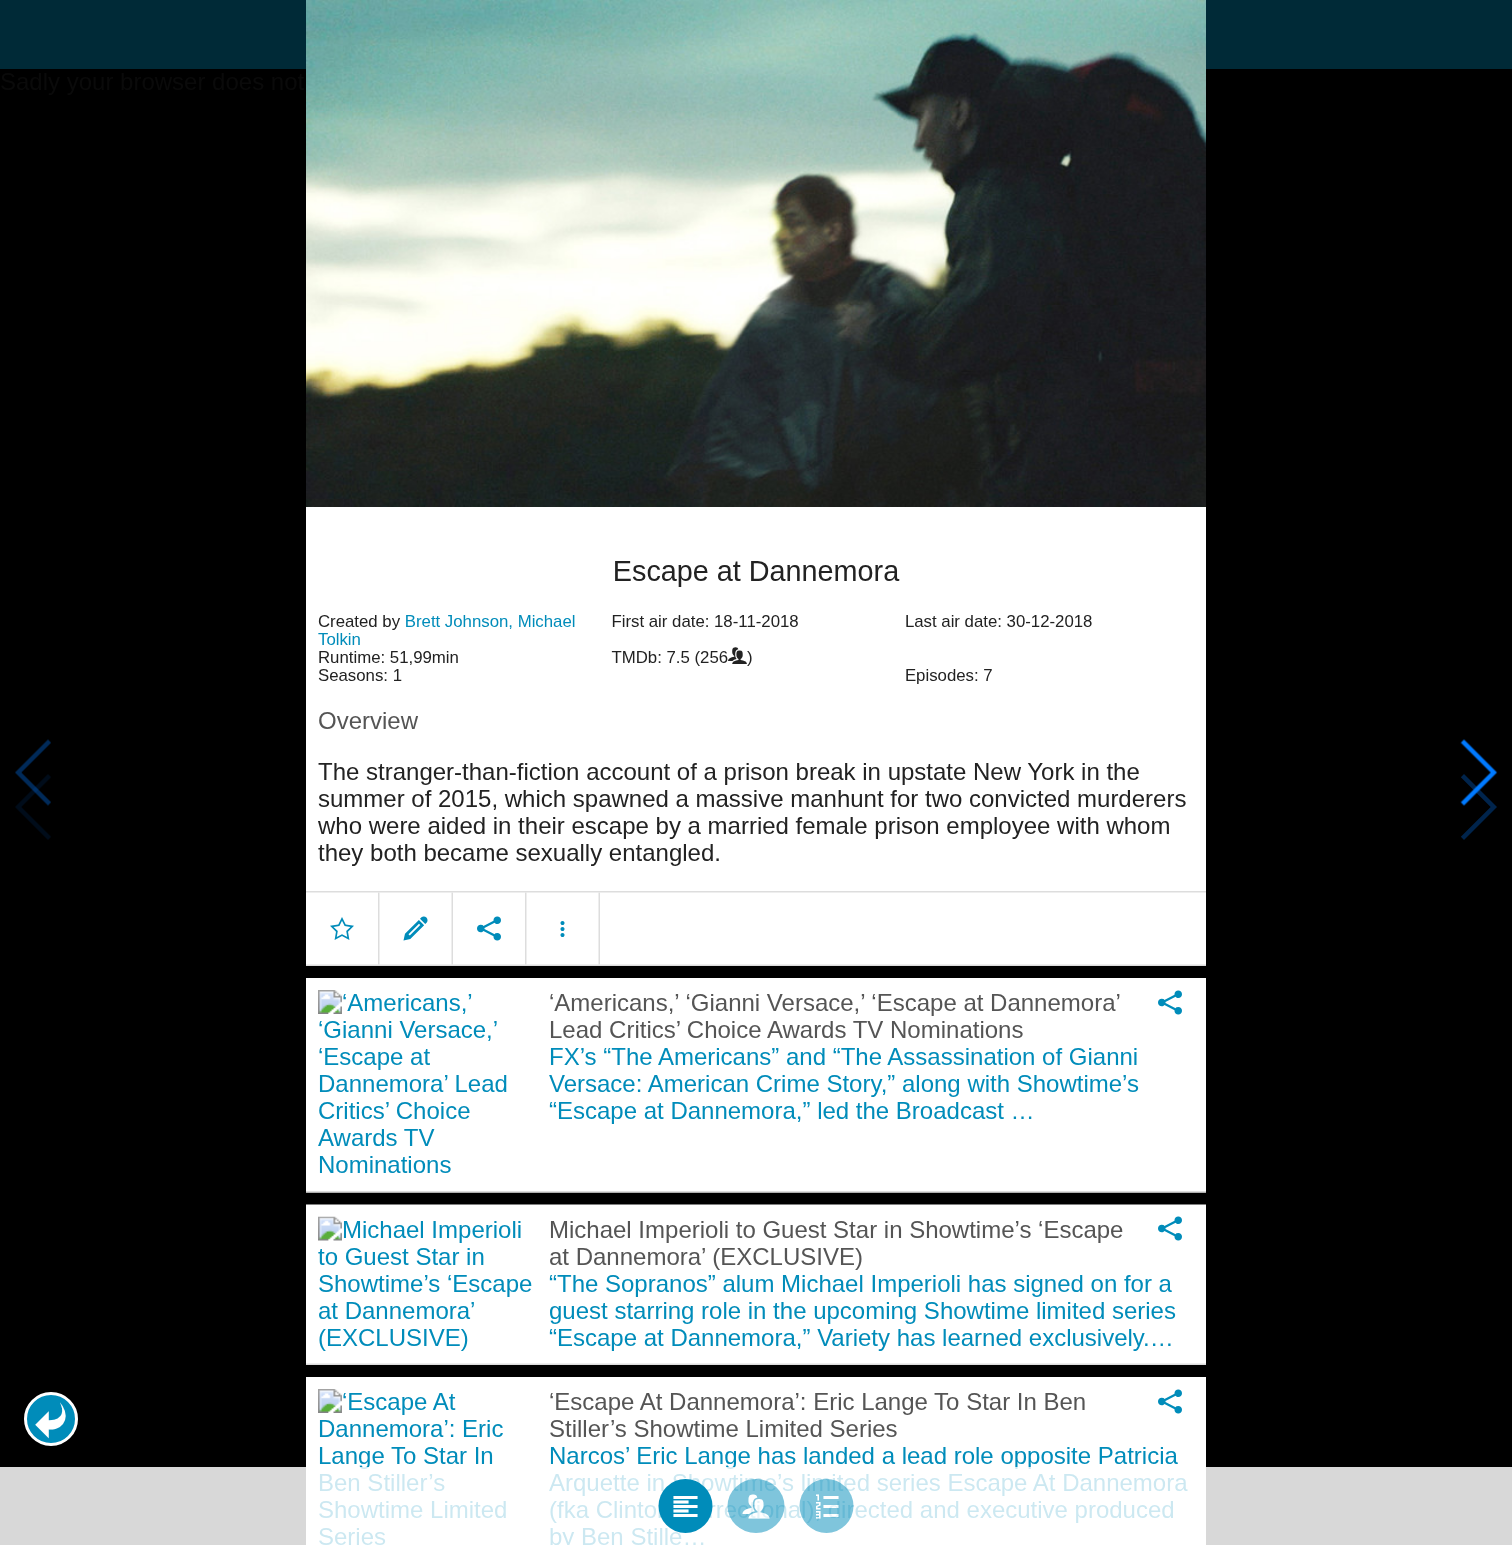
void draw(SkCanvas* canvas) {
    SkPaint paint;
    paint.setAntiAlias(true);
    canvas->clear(0xFFFFFFFF);
    canvas->drawImageRect(SkImages::DeferredFromEncodedData(SkData::MakeFromFileName("img1.png")), SkRect::MakeXYWH(0, 0, 1512, 1545), SkSamplingOptions());
}
